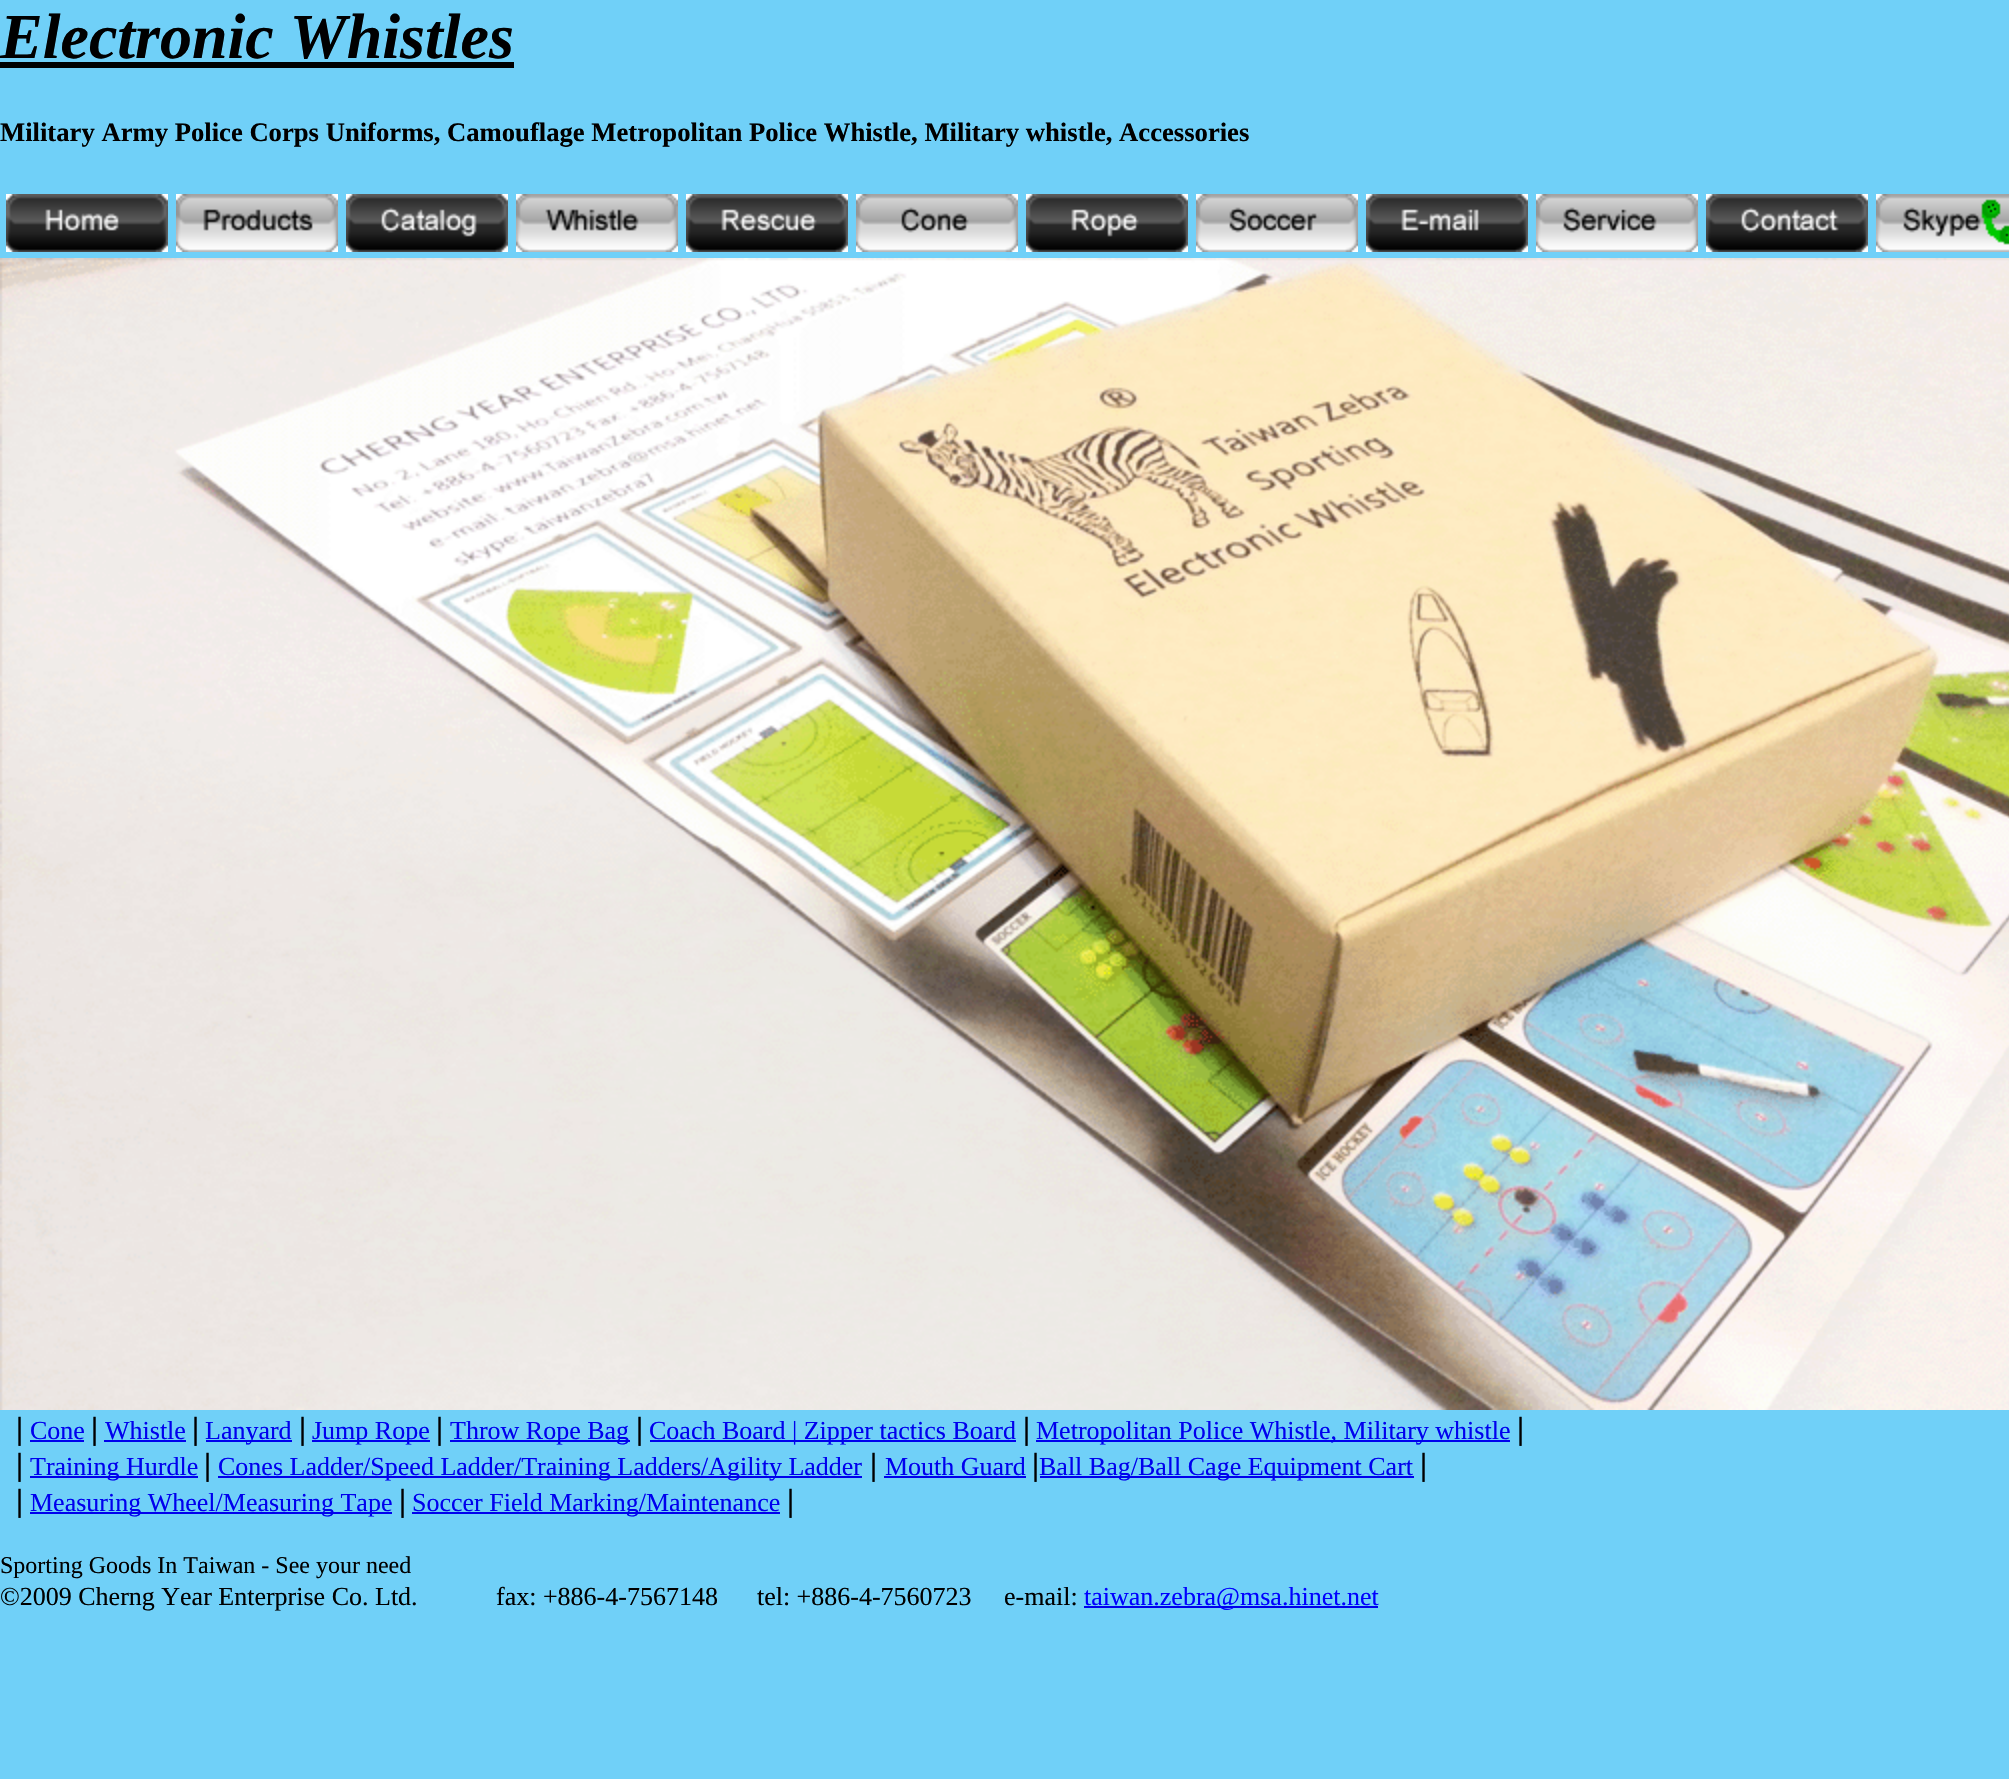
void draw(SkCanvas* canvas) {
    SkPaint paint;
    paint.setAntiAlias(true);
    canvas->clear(0xFF70D0F8);
    SkFont font1(fontMgr->matchFamilyStyle("Liberation Serif", SkFontStyle::BoldItalic()), 64);
    font1.setSubpixel(true);
    paint.setColor(0xFF000000);
    canvas->drawString("Electronic Whistles", 0, 58, font1, paint);
    canvas->drawRect(SkRect::MakeXYWH(0, 62, 514, 6), paint);
    SkFont font2(fontMgr->matchFamilyStyle("Liberation Serif", SkFontStyle::Bold()), 26.65f);
    font2.setSubpixel(true);
    canvas->drawString("Military Army Police Corps Uniforms, Camouflage Metropolitan Police Whistle, Military whistle, Accessories", 0, 141, font2, paint);
    canvas->drawImageRect(SkImages::DeferredFromEncodedData(SkData::MakeFromFileName("img1.png")), SkRect::MakeXYWH(6, 194, 162, 58), SkSamplingOptions());
    canvas->drawImageRect(SkImages::DeferredFromEncodedData(SkData::MakeFromFileName("img2.png")), SkRect::MakeXYWH(176, 194, 162, 58), SkSamplingOptions());
    canvas->drawImageRect(SkImages::DeferredFromEncodedData(SkData::MakeFromFileName("img3.png")), SkRect::MakeXYWH(346, 194, 162, 58), SkSamplingOptions());
    canvas->drawImageRect(SkImages::DeferredFromEncodedData(SkData::MakeFromFileName("img4.png")), SkRect::MakeXYWH(516, 194, 162, 58), SkSamplingOptions());
    canvas->drawImageRect(SkImages::DeferredFromEncodedData(SkData::MakeFromFileName("img5.png")), SkRect::MakeXYWH(686, 194, 162, 58), SkSamplingOptions());
    canvas->drawImageRect(SkImages::DeferredFromEncodedData(SkData::MakeFromFileName("img6.png")), SkRect::MakeXYWH(856, 194, 162, 58), SkSamplingOptions());
    canvas->drawImageRect(SkImages::DeferredFromEncodedData(SkData::MakeFromFileName("img7.png")), SkRect::MakeXYWH(1026, 194, 162, 58), SkSamplingOptions());
    canvas->drawImageRect(SkImages::DeferredFromEncodedData(SkData::MakeFromFileName("img8.png")), SkRect::MakeXYWH(1196, 194, 162, 58), SkSamplingOptions());
    canvas->drawImageRect(SkImages::DeferredFromEncodedData(SkData::MakeFromFileName("img9.png")), SkRect::MakeXYWH(1366, 194, 162, 58), SkSamplingOptions());
    canvas->drawImageRect(SkImages::DeferredFromEncodedData(SkData::MakeFromFileName("img10.png")), SkRect::MakeXYWH(1536, 194, 162, 58), SkSamplingOptions());
    canvas->drawImageRect(SkImages::DeferredFromEncodedData(SkData::MakeFromFileName("img11.png")), SkRect::MakeXYWH(1706, 194, 162, 58), SkSamplingOptions());
    canvas->drawImageRect(SkImages::DeferredFromEncodedData(SkData::MakeFromFileName("img12.png")), SkRect::MakeXYWH(1876, 194, 133, 58), SkSamplingOptions());
    canvas->drawImageRect(SkImages::DeferredFromEncodedData(SkData::MakeFromFileName("img13.png")), SkRect::MakeXYWH(0, 258, 2009, 1152), SkSamplingOptions());
    SkFont font3(fontMgr->matchFamilyStyle("Liberation Serif", SkFontStyle::Bold()), 32);
    font3.setSubpixel(true);
    canvas->drawString("|", 16, 1439, font3, paint);
    SkFont font4(fontMgr->matchFamilyStyle("Liberation Serif", SkFontStyle::Normal()), 26);
    font4.setSubpixel(true);
    paint.setColor(0xFF0000EE);
    canvas->drawString("Cone", 30, 1439, font4, paint);
    canvas->drawRect(SkRect::MakeXYWH(30, 1440, 54, 2), paint);
    paint.setColor(0xFF000000);
    canvas->drawString("|", 91, 1439, font3, paint);
    paint.setColor(0xFF0000EE);
    canvas->drawString("Whistle", 105, 1439, font4, paint);
    canvas->drawRect(SkRect::MakeXYWH(104, 1440, 82, 2), paint);
    paint.setColor(0xFF000000);
    canvas->drawString("|", 192, 1439, font3, paint);
    paint.setColor(0xFF0000EE);
    canvas->drawRect(SkRect::MakeXYWH(206, 1440, 86, 2), paint);
    canvas->drawString("Lanyard", 205, 1439, font4, paint);
    paint.setColor(0xFF000000);
    canvas->drawString("|", 299, 1439, font3, paint);
    paint.setColor(0xFF0000EE);
    canvas->drawRect(SkRect::MakeXYWH(312, 1440, 118, 2), paint);
    canvas->drawString("Jump Rope", 312, 1439, font4, paint);
    paint.setColor(0xFF000000);
    canvas->drawString("|", 436, 1439, font3, paint);
    paint.setColor(0xFF0000EE);
    canvas->drawRect(SkRect::MakeXYWH(450, 1440, 180, 2), paint);
    canvas->drawString("Throw Rope Bag", 450, 1439, font4, paint);
    paint.setColor(0xFF000000);
    canvas->drawString("|", 636, 1439, font3, paint);
    paint.setColor(0xFF0000EE);
    canvas->drawRect(SkRect::MakeXYWH(650, 1440, 366, 2), paint);
    canvas->drawString("Coach Board | Zipper tactics Board", 649, 1439, font4, paint);
    paint.setColor(0xFF000000);
    canvas->drawString("|", 1023, 1439, font3, paint);
    paint.setColor(0xFF0000EE);
    canvas->drawRect(SkRect::MakeXYWH(1036, 1440, 474, 2), paint);
    canvas->drawString("Metropolitan Police Whistle, Military whistle", 1036, 1439, font4, paint);
    paint.setColor(0xFF000000);
    canvas->drawString("|", 1517, 1439, font3, paint);
    canvas->drawString("|", 16, 1475, font3, paint);
    paint.setColor(0xFF0000EE);
    canvas->drawRect(SkRect::MakeXYWH(30, 1476, 168, 2), paint);
    canvas->drawString("Training Hurdle", 30, 1475, font4, paint);
    paint.setColor(0xFF000000);
    canvas->drawString("|", 204, 1475, font3, paint);
    paint.setColor(0xFF0000EE);
    canvas->drawRect(SkRect::MakeXYWH(218, 1476, 644, 2), paint);
    canvas->drawString("Cones Ladder/Speed Ladder/Training Ladders/Agility Ladder", 218, 1475, font4, paint);
    paint.setColor(0xFF000000);
    canvas->drawString("|", 870, 1475, font3, paint);
    paint.setColor(0xFF0000EE);
    canvas->drawString("Mouth Guard", 885, 1475, font4, paint);
    canvas->drawRect(SkRect::MakeXYWH(884, 1476, 142, 2), paint);
    paint.setColor(0xFF000000);
    canvas->drawString("|", 1032, 1475, font3, paint);
    paint.setColor(0xFF0000EE);
    canvas->drawRect(SkRect::MakeXYWH(1040, 1476, 374, 2), paint);
    canvas->drawString("Ball Bag/Ball Cage Equipment Cart", 1039, 1475, font4, paint);
    paint.setColor(0xFF000000);
    canvas->drawString("|", 1420, 1475, font3, paint);
    canvas->drawString("|", 16, 1511, font3, paint);
    paint.setColor(0xFF0000EE);
    canvas->drawRect(SkRect::MakeXYWH(30, 1512, 362, 2), paint);
    canvas->drawString("Measuring Wheel/Measuring Tape", 30, 1511, font4, paint);
    paint.setColor(0xFF000000);
    canvas->drawString("|", 399, 1511, font3, paint);
    paint.setColor(0xFF0000EE);
    canvas->drawRect(SkRect::MakeXYWH(412, 1512, 368, 2), paint);
    canvas->drawString("Soccer Field Marking/Maintenance", 412, 1511, font4, paint);
    paint.setColor(0xFF000000);
    canvas->drawString("|", 787, 1511, font3, paint);
    SkFont font5(fontMgr->matchFamilyStyle("Liberation Serif", SkFontStyle::Normal()), 24);
    font5.setSubpixel(true);
    canvas->drawString("Sporting Goods In Taiwan - See your need", 0, 1573, font5, paint);
    canvas->drawString("©2009 Cherng Year Enterprise Co. Ltd.", 0, 1605, font4, paint);
    canvas->drawString("fax: +886-4-7567148      tel: +886-4-7560723", 496, 1605, font4, paint);
    canvas->drawString("e-mail:", 1004, 1605, font4, paint);
    paint.setColor(0xFF0000EE);
    canvas->drawRect(SkRect::MakeXYWH(1084, 1606, 294, 2), paint);
    paint.setColor(0xFF0000FF);
    canvas->drawString("taiwan.zebra@msa.hinet.net", 1084, 1605, font4, paint);
}
